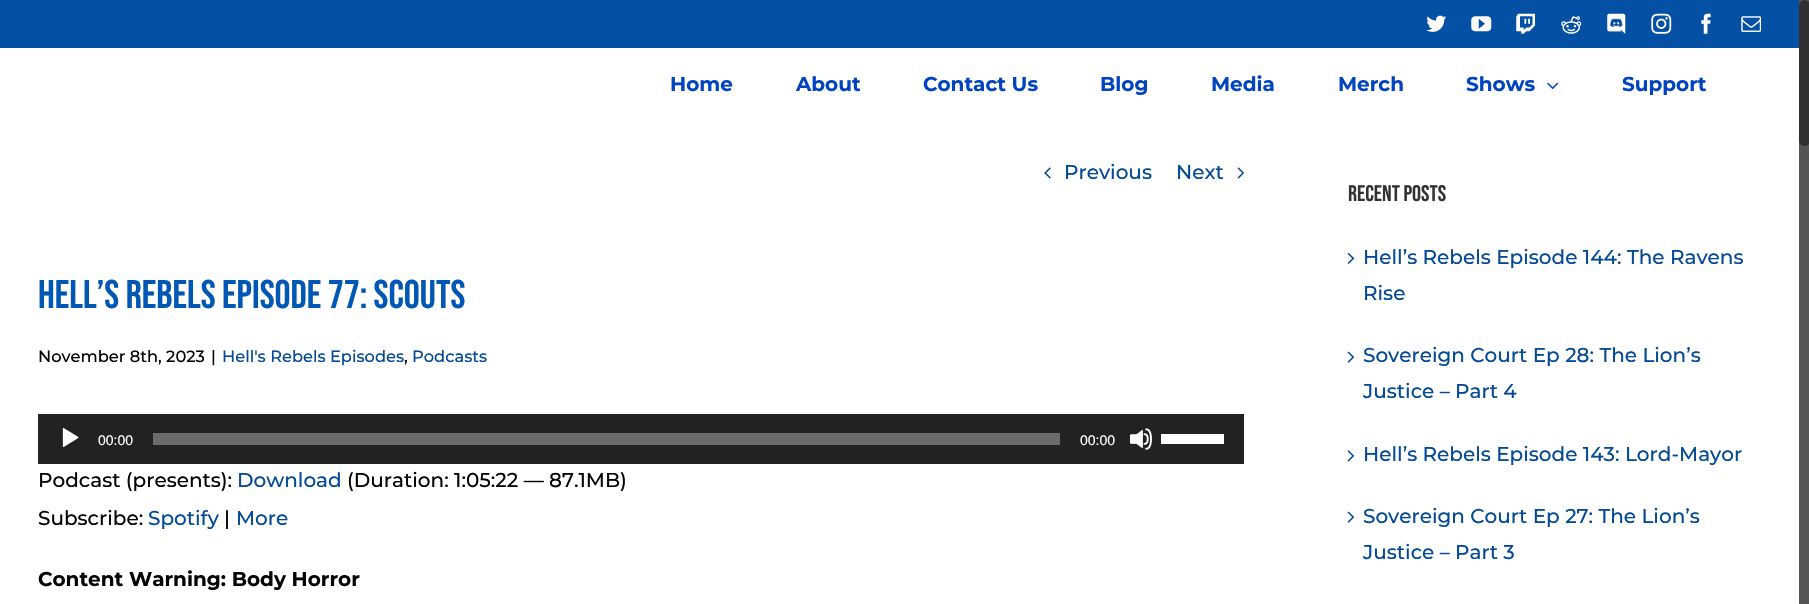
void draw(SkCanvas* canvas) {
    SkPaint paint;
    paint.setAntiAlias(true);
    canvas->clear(0xFFFFFFFF);
    paint.setColor(0xFF0450A5);
    canvas->drawRect(SkRect::MakeXYWH(0, 0, 1799, 48), paint);
    canvas->drawImageRect(SkImages::DeferredFromEncodedData(SkData::MakeFromFileName("img1.png")), SkRect::MakeXYWH(1426, 15, 21, 17), SkSamplingOptions());
    canvas->drawImageRect(SkImages::DeferredFromEncodedData(SkData::MakeFromFileName("img2.png")), SkRect::MakeXYWH(1471, 16, 21, 16), SkSamplingOptions());
    canvas->drawImageRect(SkImages::DeferredFromEncodedData(SkData::MakeFromFileName("img3.png")), SkRect::MakeXYWH(1516, 13, 19, 21), SkSamplingOptions());
    canvas->drawImageRect(SkImages::DeferredFromEncodedData(SkData::MakeFromFileName("img4.png")), SkRect::MakeXYWH(1561, 16, 21, 18), SkSamplingOptions());
    canvas->drawImageRect(SkImages::DeferredFromEncodedData(SkData::MakeFromFileName("img5.png")), SkRect::MakeXYWH(1607, 13, 19, 21), SkSamplingOptions());
    canvas->drawImageRect(SkImages::DeferredFromEncodedData(SkData::MakeFromFileName("img6.png")), SkRect::MakeXYWH(1651, 13, 21, 21), SkSamplingOptions());
    canvas->drawImageRect(SkImages::DeferredFromEncodedData(SkData::MakeFromFileName("img7.png")), SkRect::MakeXYWH(1701, 13, 10, 21), SkSamplingOptions());
    canvas->drawImageRect(SkImages::DeferredFromEncodedData(SkData::MakeFromFileName("img8.png")), SkRect::MakeXYWH(1741, 16, 20, 16), SkSamplingOptions());
    SkFont font1(fontMgr->matchFamilyStyle("Montserrat", SkFontStyle::Bold()), 20);
    font1.setSubpixel(true);
    paint.setColor(0xFF0144BF);
    canvas->drawString("Home", 670, 91, font1, paint);
    canvas->drawString("About", 796, 91, font1, paint);
    canvas->drawString("Contact Us", 923, 91, font1, paint);
    canvas->drawString("Blog", 1100, 91, font1, paint);
    canvas->drawString("Media", 1211, 91, font1, paint);
    canvas->drawString("Merch", 1338, 91, font1, paint);
    canvas->drawString("Shows", 1466, 91, font1, paint);
    canvas->drawImageRect(SkImages::DeferredFromEncodedData(SkData::MakeFromFileName("img9.png")), SkRect::MakeXYWH(1547, 82, 12, 8), SkSamplingOptions());
    canvas->drawString("Support", 1622, 91, font1, paint);
    canvas->drawImageRect(SkImages::DeferredFromEncodedData(SkData::MakeFromFileName("img10.png")), SkRect::MakeXYWH(1044, 167, 7, 12), SkSamplingOptions());
    SkFont font2(fontMgr->matchFamilyStyle("Montserrat", SkFontStyle(500, SkFontStyle::kNormal_Width, SkFontStyle::kUpright_Slant)), 20);
    font2.setSubpixel(true);
    paint.setColor(0xFF044A95);
    canvas->drawString("Previous", 1064, 179, font2, paint);
    canvas->drawString("Next", 1176, 179, font2, paint);
    canvas->drawImageRect(SkImages::DeferredFromEncodedData(SkData::MakeFromFileName("img11.png")), SkRect::MakeXYWH(1237, 167, 8, 12), SkSamplingOptions());
    SkFont font3(fontMgr->matchFamilyStyle("Bebas Neue", SkFontStyle::Normal()), 40);
    font3.setSubpixel(true);
    paint.setColor(0xFF0158B4);
    canvas->drawString("Hell’s Rebels Episode 77: Scouts", 38, 308, font3, paint);
    SkFont font4(fontMgr->matchFamilyStyle("Montserrat", SkFontStyle(500, SkFontStyle::kNormal_Width, SkFontStyle::kUpright_Slant)), 16.25f);
    font4.setSubpixel(true);
    paint.setColor(0xFF050505);
    canvas->drawString("November 8th, 2023", 38, 362, font4, paint);
    canvas->drawString("|", 211, 362, font4, paint);
    paint.setColor(0xFF044A95);
    canvas->drawString("Hell's Rebels Episodes", 222, 362, font4, paint);
    paint.setColor(0xFF050505);
    canvas->drawString(",", 404, 362, font4, paint);
    paint.setColor(0xFF044A95);
    canvas->drawString("Podcasts", 412, 362, font4, paint);
    paint.setColor(0xFF222222);
    canvas->drawRect(SkRect::MakeXYWH(38, 414, 1206, 50), paint);
    canvas->drawImageRect(SkImages::DeferredFromEncodedData(SkData::MakeFromFileName("img12.png")), SkRect::MakeXYWH(62, 428, 17, 19), SkSamplingOptions());
    SkFont font5(fontMgr->matchFamilyStyle("Liberation Sans", SkFontStyle::Normal()), 14);
    font5.setSubpixel(true);
    paint.setColor(0xFFFFFFFF);
    canvas->drawString("00:00", 98, 445, font5, paint);
    paint.setColor(0xFF6B6B6B);
    canvas->drawRect(SkRect::MakeXYWH(153, 433, 907, 12), paint);
    paint.setColor(0xFFFFFFFF);
    canvas->drawString("00:00", 1080, 445, font5, paint);
    canvas->drawImageRect(SkImages::DeferredFromEncodedData(SkData::MakeFromFileName("img13.png")), SkRect::MakeXYWH(1130, 428, 22, 22), SkSamplingOptions());
    canvas->drawRect(SkRect::MakeXYWH(1161, 434, 63, 10), paint);
    paint.setColor(0xFF050505);
    canvas->drawString("Podcast (presents):", 38, 487, font2, paint);
    paint.setColor(0xFF044A95);
    canvas->drawString("Download", 237, 487, font2, paint);
    paint.setColor(0xFF050505);
    canvas->drawString("(Duration: 1:05:22 — 87.1MB)", 347, 487, font2, paint);
    canvas->drawString("Subscribe:", 38, 525, font2, paint);
    paint.setColor(0xFF044A95);
    canvas->drawString("Spotify", 148, 525, font2, paint);
    paint.setColor(0xFF050505);
    canvas->drawString("|", 224, 525, font2, paint);
    paint.setColor(0xFF044A95);
    canvas->drawString("More", 236, 525, font2, paint);
    paint.setColor(0xFF050505);
    canvas->drawString("Content Warning: Body Horror", 38, 586, font1, paint);
    SkFont font6(fontMgr->matchFamilyStyle("Bebas Neue", SkFontStyle::Normal()), 22.5f);
    font6.setSubpixel(true);
    paint.setColor(0xFF333333);
    canvas->drawString("Recent Posts", 1348, 201, font6, paint);
    canvas->drawImageRect(SkImages::DeferredFromEncodedData(SkData::MakeFromFileName("img14.png")), SkRect::MakeXYWH(1347, 252, 8, 12), SkSamplingOptions());
    paint.setColor(0xFF044A95);
    canvas->drawString("Hell’s Rebels Episode 144: The Ravens", 1363, 264, font2, paint);
    canvas->drawString("Rise", 1363, 300, font2, paint);
    canvas->drawImageRect(SkImages::DeferredFromEncodedData(SkData::MakeFromFileName("img15.png")), SkRect::MakeXYWH(1347, 351, 8, 12), SkSamplingOptions());
    canvas->drawString("Sovereign Court Ep 28: The Lion’s", 1363, 362, font2, paint);
    canvas->drawString("Justice – Part 4", 1363, 398, font2, paint);
    canvas->drawImageRect(SkImages::DeferredFromEncodedData(SkData::MakeFromFileName("img16.png")), SkRect::MakeXYWH(1347, 450, 8, 12), SkSamplingOptions());
    canvas->drawString("Hell’s Rebels Episode 143: Lord-Mayor", 1363, 461, font2, paint);
    canvas->drawImageRect(SkImages::DeferredFromEncodedData(SkData::MakeFromFileName("img15.png")), SkRect::MakeXYWH(1347, 511, 8, 12), SkSamplingOptions());
    canvas->drawString("Sovereign Court Ep 27: The Lion’s", 1363, 523, font2, paint);
    canvas->drawString("Justice – Part 3", 1363, 559, font2, paint);
    paint.setColor(0xFF555555);
    canvas->drawRect(SkRect::MakeXYWH(1799, 0, 10, 604), paint);
    paint.setColor(0xFF303030);
    canvas->drawRoundRect(SkRect::MakeXYWH(1799, 0, 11, 146), 5.5f, 5.5f, paint);
}
